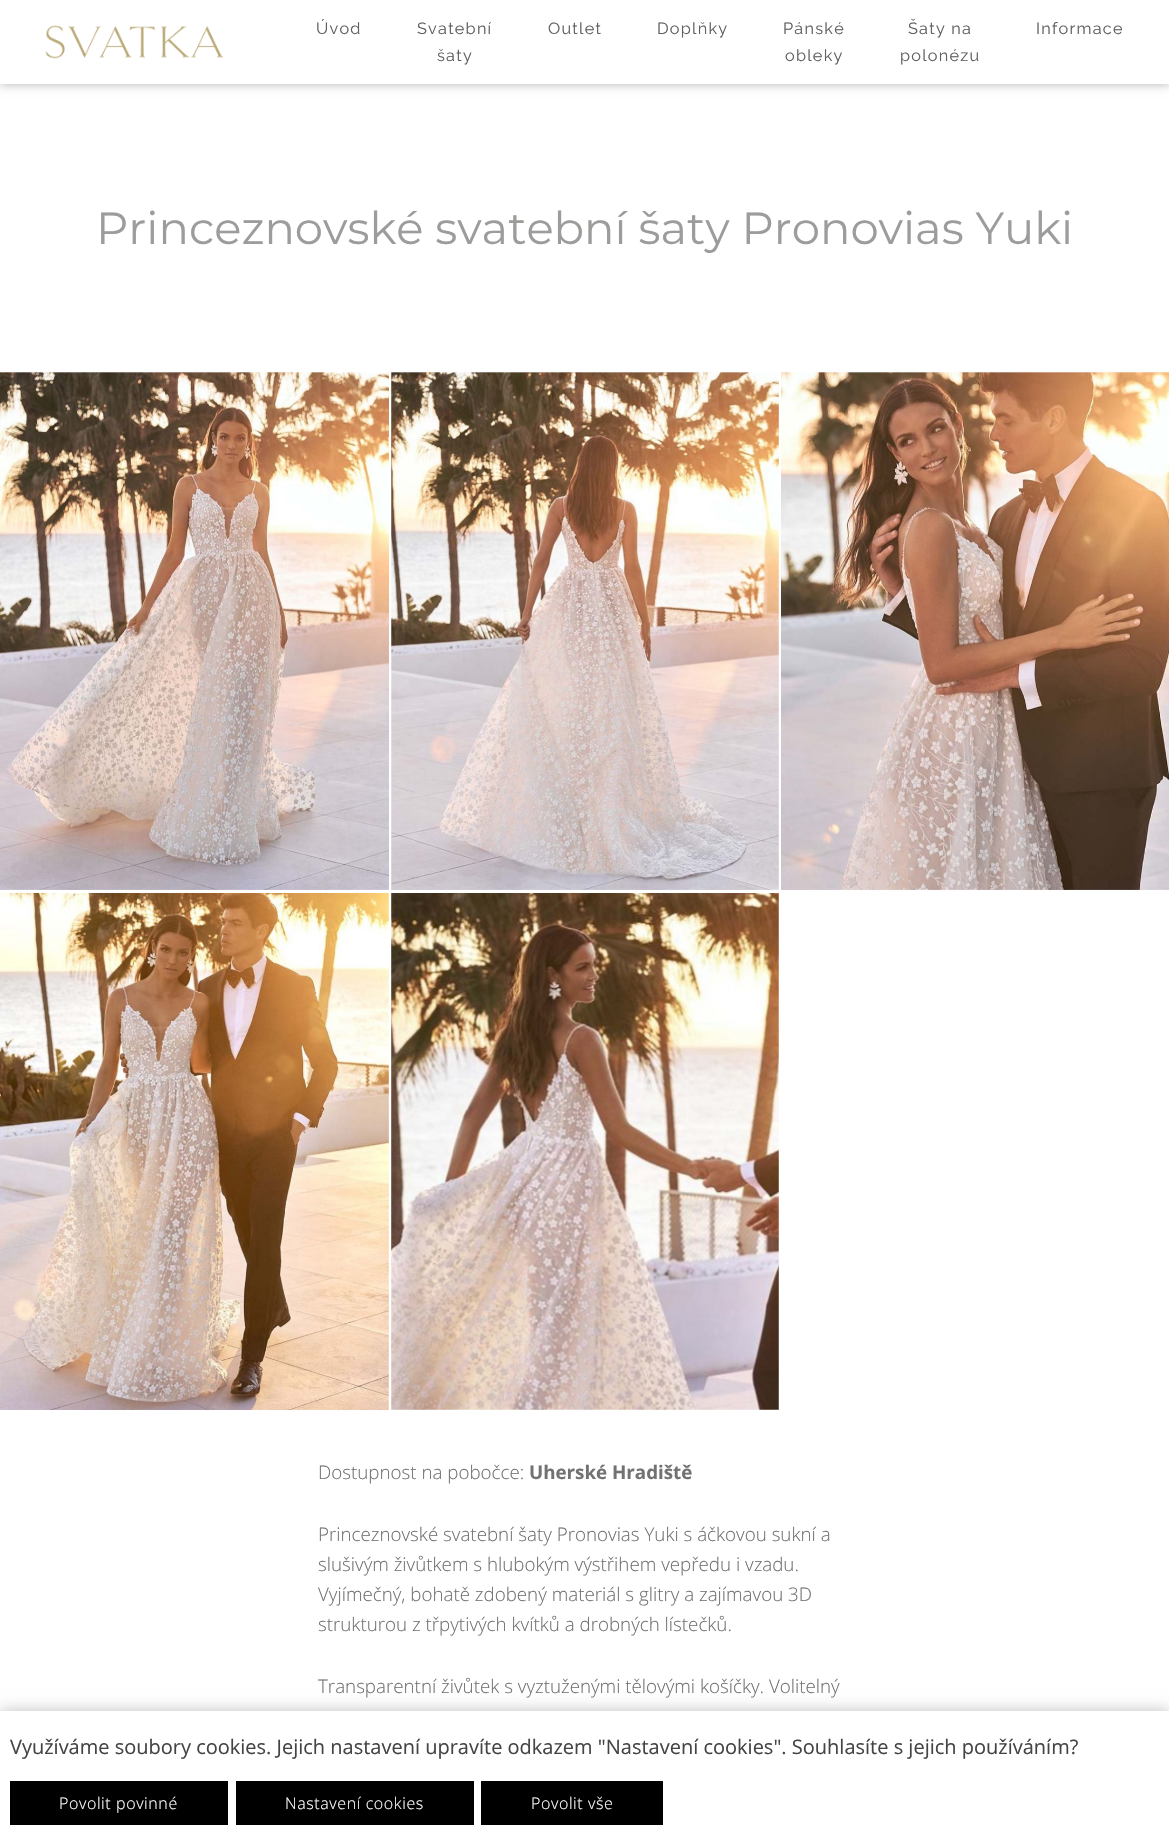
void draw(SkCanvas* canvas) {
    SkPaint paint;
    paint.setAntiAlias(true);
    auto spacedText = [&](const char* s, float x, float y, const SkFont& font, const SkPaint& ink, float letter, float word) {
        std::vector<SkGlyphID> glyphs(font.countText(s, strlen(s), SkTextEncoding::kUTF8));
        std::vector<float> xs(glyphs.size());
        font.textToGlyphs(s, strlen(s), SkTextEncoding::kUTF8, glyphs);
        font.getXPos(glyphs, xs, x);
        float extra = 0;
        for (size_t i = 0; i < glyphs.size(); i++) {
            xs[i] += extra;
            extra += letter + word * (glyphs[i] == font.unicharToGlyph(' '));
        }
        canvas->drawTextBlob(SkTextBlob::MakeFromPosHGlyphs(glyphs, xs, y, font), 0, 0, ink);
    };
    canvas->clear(0xFFFFFFFF);
    paint.setColor(0x4D000000);
    paint.setMaskFilter(SkMaskFilter::MakeBlur(kNormal_SkBlurStyle, 5));
    canvas->drawRect(SkRect::MakeXYWH(0, 0, 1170, 84), paint);
    paint.setMaskFilter(nullptr);
    paint.setColor(0xFFFFFFFF);
    canvas->drawRect(SkRect::MakeXYWH(0, 0, 1169, 84), paint);
    canvas->drawImageRect(SkImages::DeferredFromEncodedData(SkData::MakeFromFileName("img1.png")), SkRect::MakeXYWH(45, 25, 179, 34), SkSamplingOptions());
    SkFont font1(fontMgr->matchFamilyStyle("Raleway", SkFontStyle::Normal()), 16.25f);
    font1.setSubpixel(true);
    paint.setColor(0xFF605F5F);
    spacedText("Úvod", 316, 34, font1, paint, 1.25f, 0);
    spacedText("Svatební", 417, 34, font1, paint, 1.25f, 0);
    spacedText("šaty", 437, 61, font1, paint, 1.25f, 0);
    spacedText("Outlet", 548, 34, font1, paint, 1.25f, 0);
    spacedText("Doplňky", 657, 34, font1, paint, 1.25f, 0);
    spacedText("Pánské", 783, 34, font1, paint, 1.25f, 0);
    spacedText("obleky", 785, 61, font1, paint, 1.25f, 0);
    spacedText("Šaty na", 908, 34, font1, paint, 1.25f, 0);
    spacedText("polonézu", 900, 61, font1, paint, 1.25f, 0);
    spacedText("Informace", 1036, 34, font1, paint, 1.25f, 0);
    SkFont font2(fontMgr->matchFamilyStyle("Montserrat", SkFontStyle::Normal()), 45);
    font2.setSubpixel(true);
    paint.setColor(0xFF9D9C9B);
    canvas->drawString("Princeznovské svatební šaty Pronovias Yuki", 96, 244, font2, paint);
    canvas->drawImageRect(SkImages::DeferredFromEncodedData(SkData::MakeFromFileName("img2.png")), SkRect::MakeXYWH(0, 372, 389, 518), SkSamplingOptions());
    canvas->drawImageRect(SkImages::DeferredFromEncodedData(SkData::MakeFromFileName("img3.png")), SkRect::MakeXYWH(391, 372, 388, 518), SkSamplingOptions());
    canvas->drawImageRect(SkImages::DeferredFromEncodedData(SkData::MakeFromFileName("img4.png")), SkRect::MakeXYWH(781, 372, 388, 518), SkSamplingOptions());
    canvas->drawImageRect(SkImages::DeferredFromEncodedData(SkData::MakeFromFileName("img5.png")), SkRect::MakeXYWH(0, 893, 389, 517), SkSamplingOptions());
    canvas->drawImageRect(SkImages::DeferredFromEncodedData(SkData::MakeFromFileName("img6.png")), SkRect::MakeXYWH(391, 893, 388, 517), SkSamplingOptions());
    SkFont font3(fontMgr->matchFamilyStyle("Open Sans", SkFontStyle(300, SkFontStyle::kNormal_Width, SkFontStyle::kUpright_Slant)), 18.75f);
    font3.setSubpixel(true);
    paint.setColor(0xFF727272);
    canvas->drawString("Dostupnost na pobočce:", 318, 1479, font3, paint);
    SkFont font4(fontMgr->matchFamilyStyle("Open Sans", SkFontStyle::Bold()), 18.75f);
    font4.setSubpixel(true);
    canvas->drawString("Uherské Hradiště", 529, 1479, font4, paint);
    canvas->drawString("Princeznovské svatební šaty Pronovias Yuki s áčkovou sukní a", 318, 1541, font3, paint);
    canvas->drawString("slušivým živůtkem s hlubokým výstřihem vepředu i vzadu.", 318, 1571, font3, paint);
    canvas->drawString("Vyjímečný, bohatě zdobený materiál s glitry a zajímavou 3D", 318, 1601, font3, paint);
    canvas->drawString("strukturou z třpytivých kvítků a drobných lístečků.", 318, 1631, font3, paint);
    canvas->drawString("Transparentní živůtek s vyztuženými tělovými košíčky. Volitelný", 318, 1693, font3, paint);
    paint.setColor(0x40000000);
    paint.setMaskFilter(SkMaskFilter::MakeBlur(kNormal_SkBlurStyle, 7.5f));
    canvas->drawRect(SkRect::MakeXYWH(0, 1711, 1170, 134), paint);
    paint.setMaskFilter(nullptr);
    paint.setColor(0xFFFFFFFF);
    canvas->drawRect(SkRect::MakeXYWH(0, 1711, 1169, 134), paint);
    SkFont font5(fontMgr->matchFamilyStyle("Open Sans", SkFontStyle::Normal()), 20);
    font5.setSubpixel(true);
    paint.setColor(0xFF444444);
    canvas->drawString("Využíváme soubory cookies. Jejich nastavení upravíte odkazem \"Nastavení cookies\". Souhlasíte s jejich používáním?", 10, 1754, font5, paint);
    paint.setColor(0xFF000000);
    canvas->drawRect(SkRect::MakeXYWH(10, 1781, 218, 44), paint);
    SkFont font6(fontMgr->matchFamilyStyle("Open Sans", SkFontStyle(300, SkFontStyle::kNormal_Width, SkFontStyle::kUpright_Slant)), 16);
    font6.setSubpixel(true);
    paint.setColor(0xFFFFFFFF);
    spacedText("Povolit povinné", 59, 1809, font6, paint, 0.6f, 0);
    paint.setColor(0xFF000000);
    canvas->drawRect(SkRect::MakeXYWH(236, 1781, 238, 44), paint);
    paint.setColor(0xFFFFFFFF);
    spacedText("Nastavení cookies", 285, 1809, font6, paint, 0.6f, 0);
    paint.setColor(0xFF000000);
    canvas->drawRect(SkRect::MakeXYWH(481, 1781, 182, 44), paint);
    paint.setColor(0xFFFFFFFF);
    spacedText("Povolit vše", 531, 1809, font6, paint, 0.6f, 0);
}
